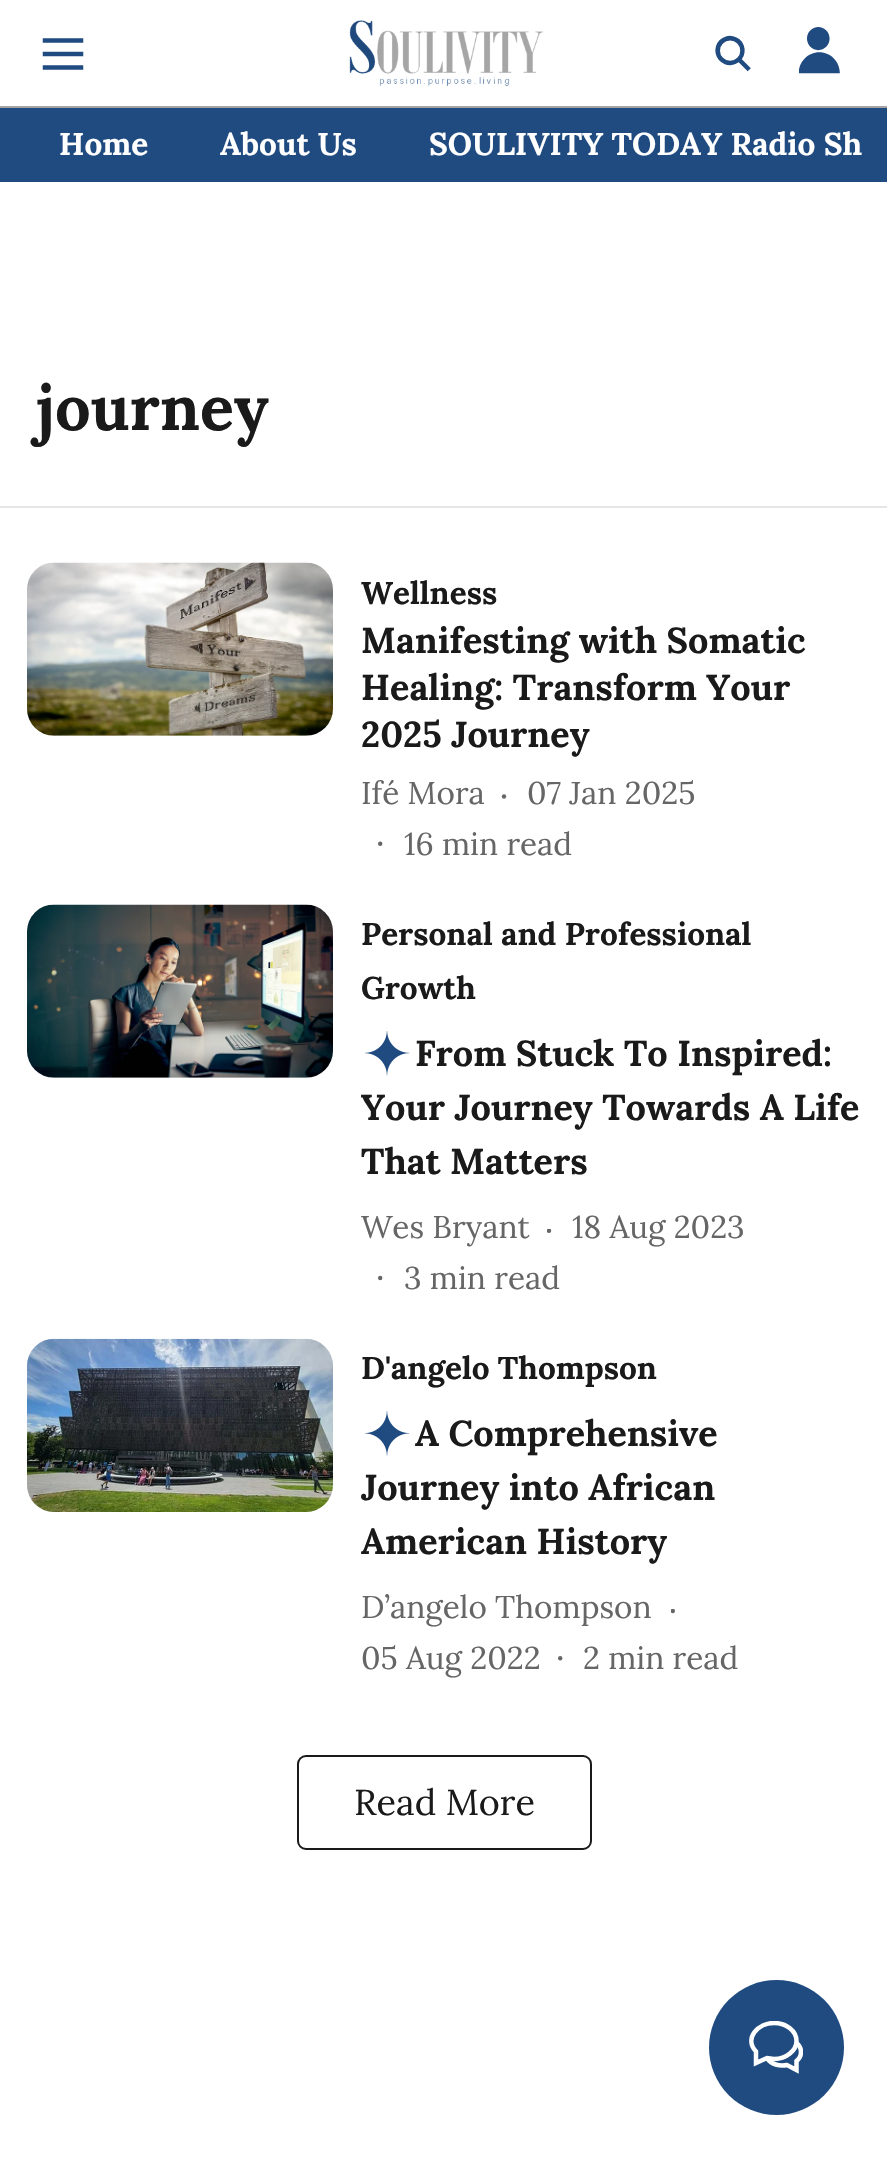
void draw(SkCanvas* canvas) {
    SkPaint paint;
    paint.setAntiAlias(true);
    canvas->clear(0xFFFFFFFF);
    paint.setColor(0xFFA4A4A4);
    canvas->drawRect(SkRect::MakeXYWH(0, 106, 887, 2), paint);
    canvas->drawImageRect(SkImages::DeferredFromEncodedData(SkData::MakeFromFileName("img1.png")), SkRect::MakeXYWH(42, 38, 42, 32), SkSamplingOptions());
    canvas->drawImageRect(SkImages::DeferredFromEncodedData(SkData::MakeFromFileName("img2.png")), SkRect::MakeXYWH(349, 20, 195, 66), SkSamplingOptions());
    canvas->drawImageRect(SkImages::DeferredFromEncodedData(SkData::MakeFromFileName("img3.png")), SkRect::MakeXYWH(715, 35, 36, 37), SkSamplingOptions());
    canvas->drawImageRect(SkImages::DeferredFromEncodedData(SkData::MakeFromFileName("img4.png")), SkRect::MakeXYWH(799, 27, 41, 47), SkSamplingOptions());
    paint.setColor(0xFF204B81);
    canvas->drawRect(SkRect::MakeXYWH(0, 108, 887, 74), paint);
    SkFont font1(fontMgr->matchFamilyStyle("Lora", SkFontStyle::Bold()), 31.5f);
    font1.setSubpixel(true);
    paint.setColor(0xFFFFFFFF);
    canvas->drawString("Home", 59, 155, font1, paint);
    canvas->drawString("About Us", 220, 155, font1, paint);
    canvas->drawString("SOULIVITY TODAY Radio Sh", 429, 155, font1, paint);
    paint.setColor(0xFFE6E6E6);
    canvas->drawRect(SkRect::MakeXYWH(0, 506, 887, 2), paint);
    SkFont font2(fontMgr->matchFamilyStyle("Lora", SkFontStyle::Bold()), 63);
    font2.setSubpixel(true);
    paint.setColor(0xFF1A1A1A);
    canvas->drawString("journey", 36, 430, font2, paint);
    paint.setColor(0xFFF0F0F0);
    canvas->drawRoundRect(SkRect::MakeXYWH(27, 563, 306, 173), 27, 27, paint);
    canvas->drawImageRect(SkImages::DeferredFromEncodedData(SkData::MakeFromFileName("img5.png")), SkRect::MakeXYWH(27, 562, 306, 174), SkSamplingOptions());
    paint.setColor(0xFF1A1A1A);
    canvas->drawString("Wellness", 361, 604, font1, paint);
    SkFont font3(fontMgr->matchFamilyStyle("Lora", SkFontStyle::Bold()), 36);
    font3.setSubpixel(true);
    canvas->drawString("Manifesting with Somatic", 361, 653, font3, paint);
    canvas->drawString("Healing: Transform Your", 361, 700, font3, paint);
    canvas->drawString("2025 Journey", 361, 747, font3, paint);
    SkFont font4(fontMgr->matchFamilyStyle("Lora", SkFontStyle::Normal()), 31.5f);
    font4.setSubpixel(true);
    paint.setColor(0xFF666666);
    canvas->drawString("Ifé Mora", 361, 804, font4, paint);
    canvas->drawCircle(504, 796.5f, 2.2f, paint);
    canvas->drawString("07 Jan 2025", 527, 804, font4, paint);
    canvas->drawCircle(380.2f, 843.8f, 2.2f, paint);
    canvas->drawString("16 min read", 404, 855, font4, paint);
    paint.setColor(0xFFF0F0F0);
    canvas->drawRoundRect(SkRect::MakeXYWH(27, 905, 306, 173), 27, 27, paint);
    canvas->drawImageRect(SkImages::DeferredFromEncodedData(SkData::MakeFromFileName("img6.png")), SkRect::MakeXYWH(27, 904, 306, 174), SkSamplingOptions());
    paint.setColor(0xFF1A1A1A);
    canvas->drawString("Personal and Professional", 361, 945, font1, paint);
    canvas->drawString("Growth", 361, 999, font1, paint);
    canvas->drawImageRect(SkImages::DeferredFromEncodedData(SkData::MakeFromFileName("img7.png")), SkRect::MakeXYWH(365, 1031, 45, 45), SkSamplingOptions());
    canvas->drawString("From Stuck To Inspired:", 415, 1066, font3, paint);
    canvas->drawString("Your Journey Towards A Life", 361, 1120, font3, paint);
    canvas->drawString("That Matters", 361, 1174, font3, paint);
    paint.setColor(0xFF666666);
    canvas->drawString("Wes Bryant", 361, 1238, font4, paint);
    canvas->save();
    canvas->clipRect(SkRect::MakeXYWH(547, 1229, 7, 7));
    canvas->drawCircle(549, 1230.8f, 2.2f, paint);
    canvas->restore();
    canvas->drawString("18 Aug 2023", 572, 1238, font4, paint);
    canvas->drawCircle(380.2f, 1278, 2.2f, paint);
    canvas->drawString("3 min read", 404, 1289, font4, paint);
    paint.setColor(0xFFF0F0F0);
    canvas->drawRoundRect(SkRect::MakeXYWH(27, 1339, 306, 173), 27, 27, paint);
    canvas->drawImageRect(SkImages::DeferredFromEncodedData(SkData::MakeFromFileName("img8.png")), SkRect::MakeXYWH(27, 1338, 306, 174), SkSamplingOptions());
    paint.setColor(0xFF1A1A1A);
    canvas->drawString("D'angelo Thompson", 361, 1379, font1, paint);
    canvas->drawImageRect(SkImages::DeferredFromEncodedData(SkData::MakeFromFileName("img9.png")), SkRect::MakeXYWH(365, 1411, 45, 45), SkSamplingOptions());
    canvas->drawString("A Comprehensive", 415, 1446, font3, paint);
    canvas->drawString("Journey into African", 361, 1500, font3, paint);
    canvas->drawString("American History", 361, 1554, font3, paint);
    paint.setColor(0xFF666666);
    canvas->drawString("D’angelo Thompson", 361, 1618, font4, paint);
    canvas->save();
    canvas->clipRect(SkRect::MakeXYWH(671, 1609, 7, 7));
    canvas->drawCircle(672.8f, 1611, 2.2f, paint);
    canvas->restore();
    canvas->drawString("05 Aug 2022", 361, 1669, font4, paint);
    canvas->drawCircle(560.2f, 1658.2f, 2.2f, paint);
    canvas->drawString("2 min read", 583, 1669, font4, paint);
    paint.setStyle(SkPaint::kStroke_Style);
    paint.setStrokeWidth(2);
    paint.setColor(0xFF1A1A1A);
    canvas->drawRoundRect(SkRect::MakeXYWH(298, 1756, 293, 93), 8, 8, paint);
    SkFont font5(fontMgr->matchFamilyStyle("Lora", SkFontStyle::Normal()), 36);
    font5.setSubpixel(true);
    paint.setStyle(SkPaint::kFill_Style);
    canvas->drawString("Read More", 354, 1815, font5, paint);
    paint.setColor(0xFF204B81);
    canvas->drawCircle(776.5f, 2047.5f, 67.5f, paint);
    canvas->save();
    canvas->clipRect(SkRect::MakeXYWH(749, 2021, 54, 54));
    paint.setStyle(SkPaint::kStroke_Style);
    paint.setStrokeWidth(4.5f);
    paint.setColor(0xFFFFFFFF);
    canvas->drawPath(SkPathBuilder().moveTo(767, 2058).cubicTo(771, 2064.5f, 779.5f, 2066.5f, 787, 2065).lineTo(796.5f, 2070).lineTo(796.5f, 2061).cubicTo(802.5f, 2056, 802.5f, 2048, 796.5f, 2043).detach(), paint);
    paint.setStrokeCap(SkPaint::kSquare_Cap);
    canvas->drawPath(SkPathBuilder().moveTo(774, 2023).cubicTo(758.5f, 2023, 743.5f, 2038, 756, 2051.5f).lineTo(756, 2063).lineTo(767, 2058).lineTo(774, 2059).cubicTo(786.5f, 2059, 796.5f, 2050.5f, 796.5f, 2041).cubicTo(796.5f, 2031, 786.5f, 2023, 774, 2023).close().detach(), paint);
    canvas->restore();
}
